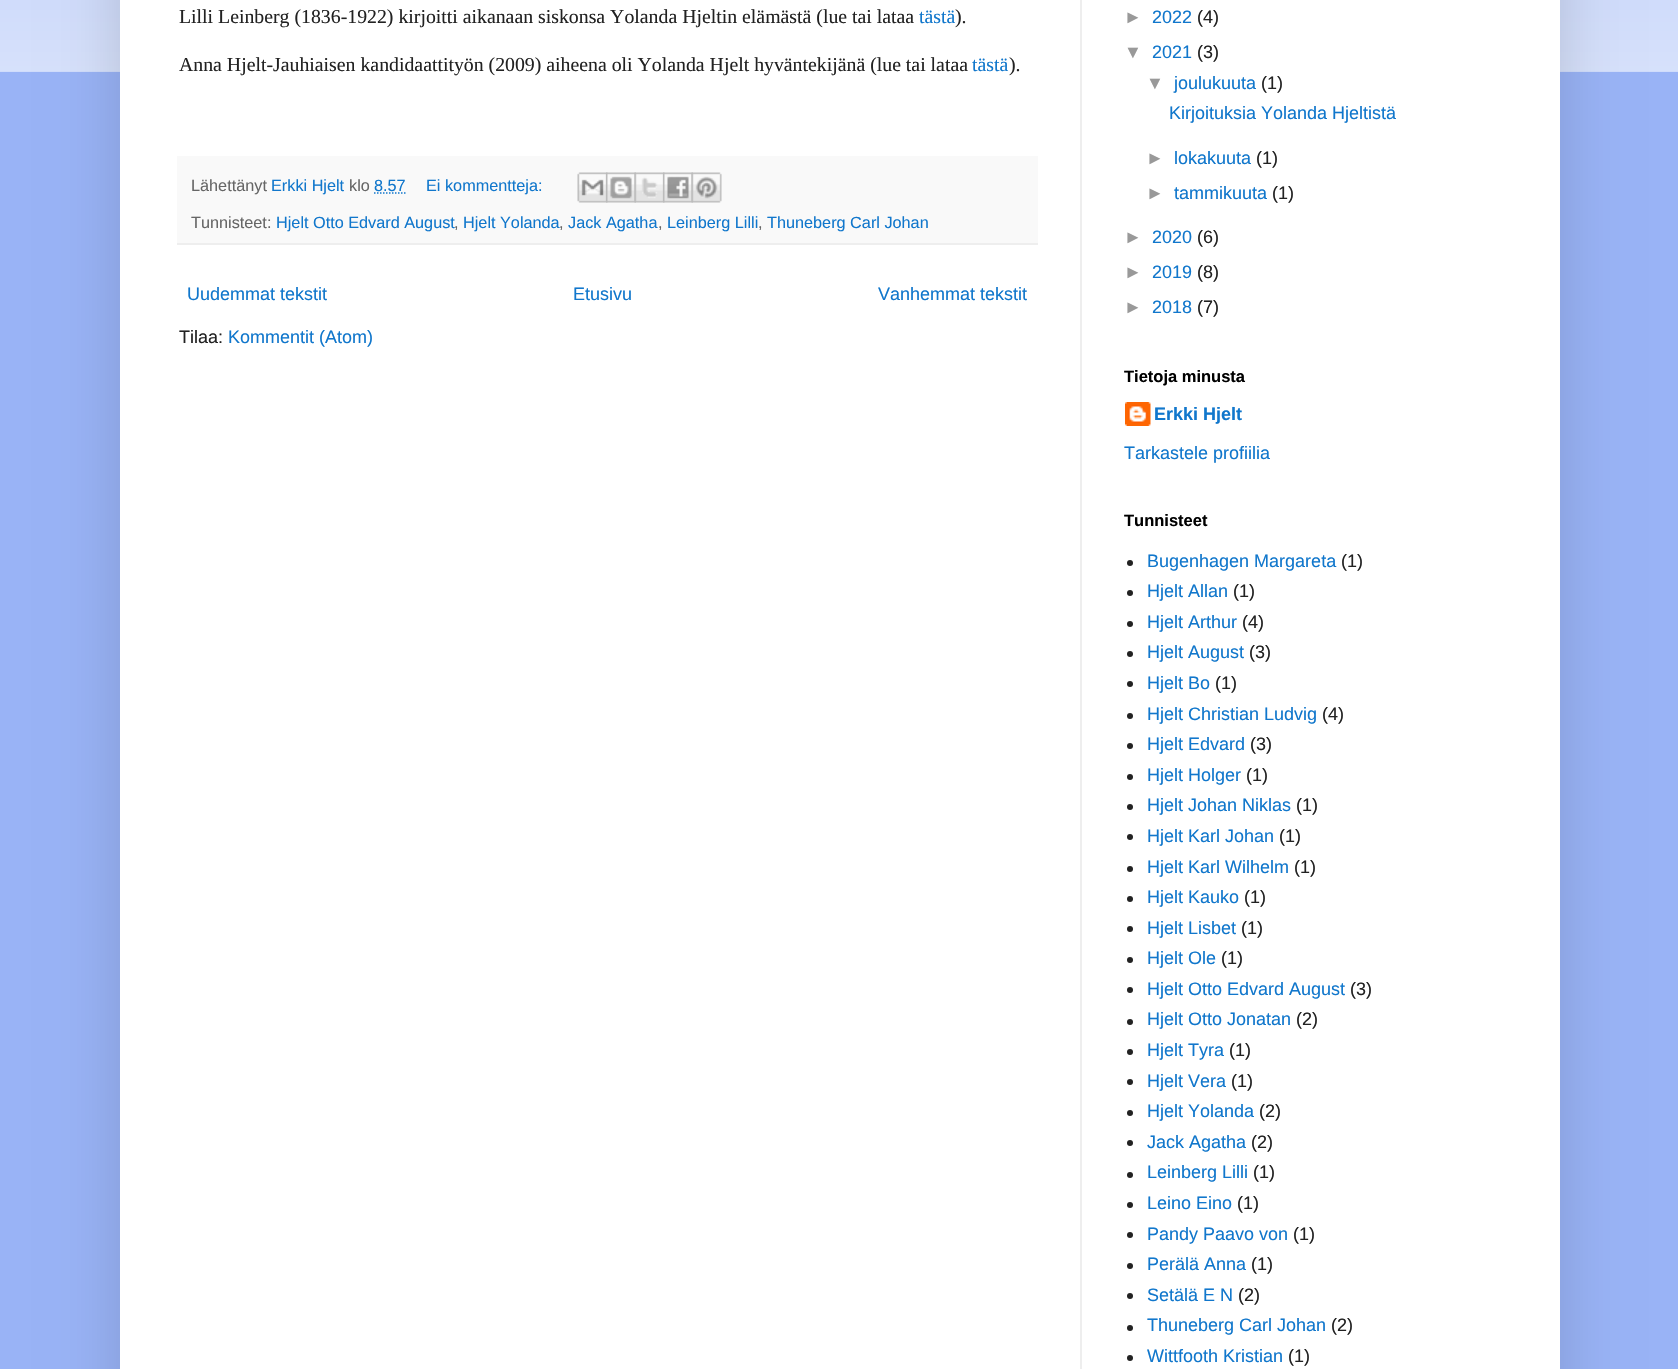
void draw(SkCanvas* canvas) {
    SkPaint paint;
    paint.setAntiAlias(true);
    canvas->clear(0xFF99B3F6);
    canvas->drawImageRect(SkImages::DeferredFromEncodedData(SkData::MakeFromFileName("img1.png")), SkRect::MakeXYWH(0, 0, 1678, 72), SkSamplingOptions());
    paint.setColor(0x26000000);
    paint.setMaskFilter(SkMaskFilter::MakeBlur(kNormal_SkBlurStyle, 30));
    canvas->drawRect(SkRect::MakeXYWH(120, -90, 1440, 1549), paint);
    paint.setMaskFilter(nullptr);
    paint.setColor(0xFFFFFFFF);
    canvas->drawRect(SkRect::MakeXYWH(120, 0, 1440, 1369), paint);
    paint.setColor(0xFFEEEEEE);
    canvas->drawRect(SkRect::MakeXYWH(1080, 0, 2, 1369), paint);
    SkFont font1(fontMgr->matchFamilyStyle("Liberation Serif", SkFontStyle::Normal()), 19.8f);
    font1.setSubpixel(true);
    paint.setColor(0xFF222222);
    canvas->drawString("Lilli Leinberg (1836-1922) kirjoitti aikanaan siskonsa Yolanda Hjeltin elämästä (lue tai lataa", 179, 23, font1, paint);
    paint.setColor(0xFF1177CC);
    canvas->drawString("tästä", 919, 23, font1, paint);
    paint.setColor(0xFF222222);
    canvas->drawString(").", 955, 23, font1, paint);
    canvas->drawString("Anna Hjelt-Jauhiaisen kandidaattityön (2009) aiheena oli Yolanda Hjelt hyväntekijänä (lue tai lataa", 179, 71, font1, paint);
    paint.setColor(0xFF1177CC);
    canvas->drawString("tästä", 972, 71, font1, paint);
    paint.setColor(0xFF222222);
    canvas->drawString(").", 1009, 71, font1, paint);
    paint.setColor(0xFFF9F9F9);
    canvas->drawRect(SkRect::MakeXYWH(177, 156, 861, 87), paint);
    paint.setColor(0xFFEEEEEE);
    canvas->drawRect(SkRect::MakeXYWH(177, 243, 861, 2), paint);
    SkFont font2(fontMgr->matchFamilyStyle("Liberation Sans", SkFontStyle::Normal()), 16.25f);
    font2.setSubpixel(true);
    paint.setColor(0xFF666666);
    canvas->drawString("Lähettänyt", 191, 191, font2, paint);
    paint.setColor(0xFF1177CC);
    canvas->drawString("Erkki Hjelt", 271, 191, font2, paint);
    paint.setColor(0xFF666666);
    canvas->drawString("klo", 349, 191, font2, paint);
    paint.setColor(0xFF1177CC);
    canvas->drawString("8.57", 374, 191, font2, paint);
    paint.setStyle(SkPaint::kStroke_Style);
    paint.setStrokeWidth(1.5f);
    paint.setPathEffect(SkDashPathEffect::Make({{1.5f, 1.5f}}, 0));
    canvas->drawPath(SkPathBuilder().moveTo(374, 193).lineTo(405.5f, 193).detach(), paint);
    paint.setPathEffect(nullptr);
    paint.setStyle(SkPaint::kFill_Style);
    canvas->drawString("Ei kommentteja:", 426, 191, font2, paint);
    canvas->drawImageRect(SkImages::DeferredFromEncodedData(SkData::MakeFromFileName("img2.png")), SkRect::MakeXYWH(577, 172, 31, 31), SkSamplingOptions());
    canvas->drawImageRect(SkImages::DeferredFromEncodedData(SkData::MakeFromFileName("img3.png")), SkRect::MakeXYWH(606, 172, 30, 31), SkSamplingOptions());
    canvas->drawImageRect(SkImages::DeferredFromEncodedData(SkData::MakeFromFileName("img4.png")), SkRect::MakeXYWH(634, 172, 31, 31), SkSamplingOptions());
    canvas->drawImageRect(SkImages::DeferredFromEncodedData(SkData::MakeFromFileName("img5.png")), SkRect::MakeXYWH(663, 172, 30, 31), SkSamplingOptions());
    canvas->drawImageRect(SkImages::DeferredFromEncodedData(SkData::MakeFromFileName("img6.png")), SkRect::MakeXYWH(691, 172, 31, 31), SkSamplingOptions());
    paint.setColor(0xFF666666);
    canvas->drawString("Tunnisteet:", 191, 228, font2, paint);
    paint.setColor(0xFF1177CC);
    canvas->drawString("Hjelt Otto Edvard August", 276, 228, font2, paint);
    paint.setColor(0xFF666666);
    canvas->drawString(",", 454, 228, font2, paint);
    paint.setColor(0xFF1177CC);
    canvas->drawString("Hjelt Yolanda", 463, 228, font2, paint);
    paint.setColor(0xFF666666);
    canvas->drawString(",", 559, 228, font2, paint);
    paint.setColor(0xFF1177CC);
    canvas->drawString("Jack Agatha", 568, 228, font2, paint);
    paint.setColor(0xFF666666);
    canvas->drawString(",", 658, 228, font2, paint);
    paint.setColor(0xFF1177CC);
    canvas->drawString("Leinberg Lilli", 667, 228, font2, paint);
    paint.setColor(0xFF666666);
    canvas->drawString(",", 758, 228, font2, paint);
    paint.setColor(0xFF1177CC);
    canvas->drawString("Thuneberg Carl Johan", 767, 228, font2, paint);
    SkFont font3(fontMgr->matchFamilyStyle("Liberation Sans", SkFontStyle::Normal()), 18);
    font3.setSubpixel(true);
    canvas->drawString("Uudemmat tekstit", 187, 300, font3, paint);
    canvas->drawString("Etusivu", 573, 300, font3, paint);
    canvas->drawString("Vanhemmat tekstit", 878, 300, font3, paint);
    paint.setColor(0xFF222222);
    canvas->drawString("Tilaa:", 179, 343, font3, paint);
    paint.setColor(0xFF1177CC);
    canvas->drawString("Kommentit (Atom)", 228, 343, font3, paint);
    paint.setColor(0xFF999999);
    canvas->drawString("►", 1124, 23, font3, paint);
    paint.setColor(0xFF1177CC);
    canvas->drawString("2022", 1152, 23, font3, paint);
    paint.setColor(0xFF222222);
    canvas->drawString("(4)", 1197, 23, font3, paint);
    paint.setColor(0xFF999999);
    canvas->drawString("▼", 1124, 58, font3, paint);
    paint.setColor(0xFF1177CC);
    canvas->drawString("2021", 1152, 58, font3, paint);
    paint.setColor(0xFF222222);
    canvas->drawString("(3)", 1197, 58, font3, paint);
    paint.setColor(0xFF999999);
    canvas->drawString("▼", 1146, 89, font3, paint);
    paint.setColor(0xFF1177CC);
    canvas->drawString("joulukuuta", 1174, 89, font3, paint);
    paint.setColor(0xFF222222);
    canvas->drawString("(1)", 1261, 89, font3, paint);
    paint.setColor(0xFF1177CC);
    canvas->drawString("Kirjoituksia Yolanda Hjeltistä", 1169, 119, font3, paint);
    paint.setColor(0xFF999999);
    canvas->drawString("►", 1146, 164, font3, paint);
    paint.setColor(0xFF1177CC);
    canvas->drawString("lokakuuta", 1174, 164, font3, paint);
    paint.setColor(0xFF222222);
    canvas->drawString("(1)", 1256, 164, font3, paint);
    paint.setColor(0xFF999999);
    canvas->drawString("►", 1146, 199, font3, paint);
    paint.setColor(0xFF1177CC);
    canvas->drawString("tammikuuta", 1174, 199, font3, paint);
    paint.setColor(0xFF222222);
    canvas->drawString("(1)", 1272, 199, font3, paint);
    paint.setColor(0xFF999999);
    canvas->drawString("►", 1124, 243, font3, paint);
    paint.setColor(0xFF1177CC);
    canvas->drawString("2020", 1152, 243, font3, paint);
    paint.setColor(0xFF222222);
    canvas->drawString("(6)", 1197, 243, font3, paint);
    paint.setColor(0xFF999999);
    canvas->drawString("►", 1124, 278, font3, paint);
    paint.setColor(0xFF1177CC);
    canvas->drawString("2019", 1152, 278, font3, paint);
    paint.setColor(0xFF222222);
    canvas->drawString("(8)", 1197, 278, font3, paint);
    paint.setColor(0xFF999999);
    canvas->drawString("►", 1124, 313, font3, paint);
    paint.setColor(0xFF1177CC);
    canvas->drawString("2018", 1152, 313, font3, paint);
    paint.setColor(0xFF222222);
    canvas->drawString("(7)", 1197, 313, font3, paint);
    SkFont font4(fontMgr->matchFamilyStyle("Liberation Sans", SkFontStyle::Bold()), 16.5f);
    font4.setSubpixel(true);
    paint.setColor(0xFF000000);
    canvas->drawString("Tietoja minusta", 1124, 382, font4, paint);
    canvas->drawImageRect(SkImages::DeferredFromEncodedData(SkData::MakeFromFileName("img7.png")), SkRect::MakeXYWH(1125, 402, 26, 24), SkSamplingOptions());
    SkFont font5(fontMgr->matchFamilyStyle("Liberation Sans", SkFontStyle::Bold()), 18);
    font5.setSubpixel(true);
    paint.setColor(0xFF1177CC);
    canvas->drawString("Erkki Hjelt", 1154, 420, font5, paint);
    canvas->drawString("Tarkastele profiilia", 1124, 459, font3, paint);
    paint.setColor(0xFF000000);
    canvas->drawString("Tunnisteet", 1124, 526, font4, paint);
    paint.setColor(0xFF222222);
    canvas->drawCircle(1130, 563, 3, paint);
    paint.setColor(0xFF1177CC);
    canvas->drawString("Bugenhagen Margareta", 1147, 567, font3, paint);
    paint.setColor(0xFF222222);
    canvas->drawString("(1)", 1341, 567, font3, paint);
    canvas->drawCircle(1130, 593, 3, paint);
    paint.setColor(0xFF1177CC);
    canvas->drawString("Hjelt Allan", 1147, 597, font3, paint);
    paint.setColor(0xFF222222);
    canvas->drawString("(1)", 1233, 597, font3, paint);
    canvas->drawCircle(1130, 624, 3, paint);
    paint.setColor(0xFF1177CC);
    canvas->drawString("Hjelt Arthur", 1147, 628, font3, paint);
    paint.setColor(0xFF222222);
    canvas->drawString("(4)", 1242, 628, font3, paint);
    canvas->drawCircle(1130, 654, 3, paint);
    paint.setColor(0xFF1177CC);
    canvas->drawString("Hjelt August", 1147, 658, font3, paint);
    paint.setColor(0xFF222222);
    canvas->drawString("(3)", 1249, 658, font3, paint);
    canvas->drawCircle(1130, 684, 3, paint);
    paint.setColor(0xFF1177CC);
    canvas->drawString("Hjelt Bo", 1147, 689, font3, paint);
    paint.setColor(0xFF222222);
    canvas->drawString("(1)", 1215, 689, font3, paint);
    canvas->drawCircle(1130, 716, 3, paint);
    paint.setColor(0xFF1177CC);
    canvas->drawString("Hjelt Christian Ludvig", 1147, 720, font3, paint);
    paint.setColor(0xFF222222);
    canvas->drawString("(4)", 1322, 720, font3, paint);
    canvas->drawCircle(1130, 746, 3, paint);
    paint.setColor(0xFF1177CC);
    canvas->drawString("Hjelt Edvard", 1147, 750, font3, paint);
    paint.setColor(0xFF222222);
    canvas->drawString("(3)", 1250, 750, font3, paint);
    canvas->drawCircle(1130, 777, 3, paint);
    paint.setColor(0xFF1177CC);
    canvas->drawString("Hjelt Holger", 1147, 781, font3, paint);
    paint.setColor(0xFF222222);
    canvas->drawString("(1)", 1246, 781, font3, paint);
    canvas->drawCircle(1130, 807, 3, paint);
    paint.setColor(0xFF1177CC);
    canvas->drawString("Hjelt Johan Niklas", 1147, 811, font3, paint);
    paint.setColor(0xFF222222);
    canvas->drawString("(1)", 1296, 811, font3, paint);
    canvas->drawCircle(1130, 837, 3, paint);
    paint.setColor(0xFF1177CC);
    canvas->drawString("Hjelt Karl Johan", 1147, 842, font3, paint);
    paint.setColor(0xFF222222);
    canvas->drawString("(1)", 1279, 842, font3, paint);
    canvas->drawCircle(1130, 869, 3, paint);
    paint.setColor(0xFF1177CC);
    canvas->drawString("Hjelt Karl Wilhelm", 1147, 873, font3, paint);
    paint.setColor(0xFF222222);
    canvas->drawString("(1)", 1294, 873, font3, paint);
    canvas->drawCircle(1130, 899, 3, paint);
    paint.setColor(0xFF1177CC);
    canvas->drawString("Hjelt Kauko", 1147, 903, font3, paint);
    paint.setColor(0xFF222222);
    canvas->drawString("(1)", 1244, 903, font3, paint);
    canvas->drawCircle(1130, 929, 3, paint);
    paint.setColor(0xFF1177CC);
    canvas->drawString("Hjelt Lisbet", 1147, 934, font3, paint);
    paint.setColor(0xFF222222);
    canvas->drawString("(1)", 1241, 934, font3, paint);
    canvas->drawCircle(1130, 960, 3, paint);
    paint.setColor(0xFF1177CC);
    canvas->drawString("Hjelt Ole", 1147, 964, font3, paint);
    paint.setColor(0xFF222222);
    canvas->drawString("(1)", 1221, 964, font3, paint);
    canvas->drawCircle(1130, 990, 3, paint);
    paint.setColor(0xFF1177CC);
    canvas->drawString("Hjelt Otto Edvard August", 1147, 995, font3, paint);
    paint.setColor(0xFF222222);
    canvas->drawString("(3)", 1350, 995, font3, paint);
    canvas->drawCircle(1130, 1022, 3, paint);
    paint.setColor(0xFF1177CC);
    canvas->drawString("Hjelt Otto Jonatan", 1147, 1025, font3, paint);
    paint.setColor(0xFF222222);
    canvas->drawString("(2)", 1296, 1025, font3, paint);
    canvas->drawCircle(1130, 1052, 3, paint);
    paint.setColor(0xFF1177CC);
    canvas->drawString("Hjelt Tyra", 1147, 1056, font3, paint);
    paint.setColor(0xFF222222);
    canvas->drawString("(1)", 1229, 1056, font3, paint);
    canvas->drawCircle(1130, 1082, 3, paint);
    paint.setColor(0xFF1177CC);
    canvas->drawString("Hjelt Vera", 1147, 1087, font3, paint);
    paint.setColor(0xFF222222);
    canvas->drawString("(1)", 1231, 1087, font3, paint);
    canvas->drawCircle(1130, 1113, 3, paint);
    paint.setColor(0xFF1177CC);
    canvas->drawString("Hjelt Yolanda", 1147, 1117, font3, paint);
    paint.setColor(0xFF222222);
    canvas->drawString("(2)", 1259, 1117, font3, paint);
    canvas->drawCircle(1130, 1143, 3, paint);
    paint.setColor(0xFF1177CC);
    canvas->drawString("Jack Agatha", 1147, 1148, font3, paint);
    paint.setColor(0xFF222222);
    canvas->drawString("(2)", 1251, 1148, font3, paint);
    canvas->drawCircle(1130, 1175, 3, paint);
    paint.setColor(0xFF1177CC);
    canvas->drawString("Leinberg Lilli", 1147, 1178, font3, paint);
    paint.setColor(0xFF222222);
    canvas->drawString("(1)", 1253, 1178, font3, paint);
    canvas->drawCircle(1130, 1205, 3, paint);
    paint.setColor(0xFF1177CC);
    canvas->drawString("Leino Eino", 1147, 1209, font3, paint);
    paint.setColor(0xFF222222);
    canvas->drawString("(1)", 1237, 1209, font3, paint);
    canvas->drawCircle(1130, 1235, 3, paint);
    paint.setColor(0xFF1177CC);
    canvas->drawString("Pandy Paavo von", 1147, 1240, font3, paint);
    paint.setColor(0xFF222222);
    canvas->drawString("(1)", 1293, 1240, font3, paint);
    canvas->drawCircle(1130, 1266, 3, paint);
    paint.setColor(0xFF1177CC);
    canvas->drawString("Perälä Anna", 1147, 1270, font3, paint);
    paint.setColor(0xFF222222);
    canvas->drawString("(1)", 1251, 1270, font3, paint);
    canvas->drawCircle(1130, 1296, 3, paint);
    paint.setColor(0xFF1177CC);
    canvas->drawString("Setälä E N", 1147, 1301, font3, paint);
    paint.setColor(0xFF222222);
    canvas->drawString("(2)", 1238, 1301, font3, paint);
    canvas->drawCircle(1130, 1328, 3, paint);
    paint.setColor(0xFF1177CC);
    canvas->drawString("Thuneberg Carl Johan", 1147, 1331, font3, paint);
    paint.setColor(0xFF222222);
    canvas->drawString("(2)", 1331, 1331, font3, paint);
    canvas->drawCircle(1130, 1358, 3, paint);
    paint.setColor(0xFF1177CC);
    canvas->drawString("Wittfooth Kristian", 1147, 1362, font3, paint);
    paint.setColor(0xFF222222);
    canvas->drawString("(1)", 1288, 1362, font3, paint);
}
